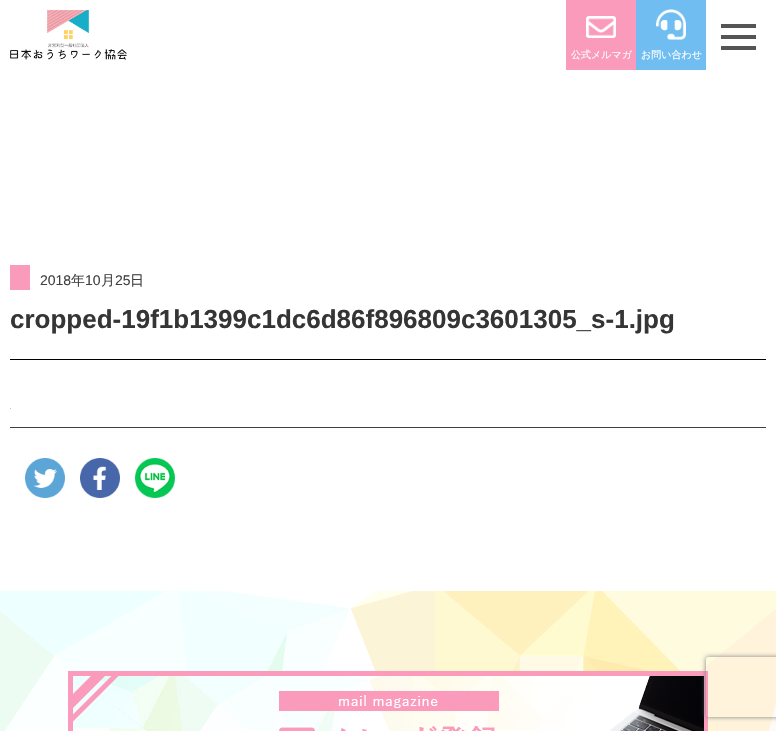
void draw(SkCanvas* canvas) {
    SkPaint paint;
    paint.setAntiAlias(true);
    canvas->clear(0xFFFFFFFF);
    canvas->drawImageRect(SkImages::DeferredFromEncodedData(SkData::MakeFromFileName("img1.png")), SkRect::MakeXYWH(10, 10, 117, 50), SkSamplingOptions());
    paint.setColor(0xFF555555);
    canvas->drawRect(SkRect::MakeXYWH(721, 24, 35, 4), paint);
    canvas->drawRect(SkRect::MakeXYWH(721, 35, 35, 4), paint);
    canvas->drawRect(SkRect::MakeXYWH(721, 46, 35, 4), paint);
    paint.setColor(0xFFFB9BBB);
    canvas->drawRect(SkRect::MakeXYWH(566, 0, 70, 70), paint);
    canvas->drawImageRect(SkImages::DeferredFromEncodedData(SkData::MakeFromFileName("img2.png")), SkRect::MakeXYWH(586, 16, 30, 22), SkSamplingOptions());
    SkFont font1(fontMgr->matchFamilyStyle("WenQuanYi Zen Hei", SkFontStyle(500, SkFontStyle::kNormal_Width, SkFontStyle::kUpright_Slant)), 10);
    font1.setSubpixel(true);
    paint.setColor(0xFFFFFFFF);
    canvas->drawString("公式メルマガ", 571, 58, font1, paint);
    paint.setColor(0xFF70BEF1);
    canvas->drawRect(SkRect::MakeXYWH(636, 0, 70, 70), paint);
    canvas->drawImageRect(SkImages::DeferredFromEncodedData(SkData::MakeFromFileName("img3.png")), SkRect::MakeXYWH(656, 9, 30, 31), SkSamplingOptions());
    paint.setColor(0xFFFFFFFF);
    canvas->drawString("お問い合わせ", 641, 58, font1, paint);
    paint.setColor(0xFF000000);
    canvas->drawRect(SkRect::MakeXYWH(10, 359, 756, 1), paint);
    paint.setColor(0xFFFB9BBB);
    canvas->drawRect(SkRect::MakeXYWH(10, 265, 20, 25), paint);
    SkFont font2(fontMgr->matchFamilyStyle("Liberation Sans", SkFontStyle::Normal()), 14);
    font2.setSubpixel(true);
    paint.setColor(0xFF404040);
    canvas->drawString("2018", 40, 285, font2, paint);
    SkFont font3(fontMgr->matchFamilyStyle("WenQuanYi Zen Hei", SkFontStyle(500, SkFontStyle::kNormal_Width, SkFontStyle::kUpright_Slant)), 14);
    font3.setSubpixel(true);
    canvas->drawString("年", 71, 285, font3, paint);
    canvas->drawString("10", 85, 285, font2, paint);
    canvas->drawString("月", 101, 285, font3, paint);
    canvas->drawString("25", 115, 285, font2, paint);
    canvas->drawString("日", 130, 285, font3, paint);
    SkFont font4(fontMgr->matchFamilyStyle("Liberation Sans", SkFontStyle::Bold()), 26);
    font4.setSubpixel(true);
    paint.setColor(0xFF353535);
    canvas->drawString("cropped-19f1b1399c1dc6d86f896809c3601305_s-1.jpg", 10, 328, font4, paint);
    paint.setColor(0xFF404040);
    canvas->drawRect(SkRect::MakeXYWH(10, 427, 756, 1), paint);
    paint.setColor(0xFFC8C0B7);
    canvas->drawRect(SkRect::MakeXYWH(10, 408, 1, 1), paint);
    canvas->drawImageRect(SkImages::DeferredFromEncodedData(SkData::MakeFromFileName("img4.png")), SkRect::MakeXYWH(25, 458, 40, 40), SkSamplingOptions());
    canvas->drawImageRect(SkImages::DeferredFromEncodedData(SkData::MakeFromFileName("img5.png")), SkRect::MakeXYWH(80, 458, 40, 40), SkSamplingOptions());
    canvas->drawImageRect(SkImages::DeferredFromEncodedData(SkData::MakeFromFileName("img6.png")), SkRect::MakeXYWH(135, 458, 40, 40), SkSamplingOptions());
    canvas->drawImageRect(SkImages::DeferredFromEncodedData(SkData::MakeFromFileName("img7.png")), SkRect::MakeXYWH(0, 591, 776, 140), SkSamplingOptions());
    canvas->drawImageRect(SkImages::DeferredFromEncodedData(SkData::MakeFromFileName("img8.png")), SkRect::MakeXYWH(68, 671, 640, 60), SkSamplingOptions());
    canvas->save();
    canvas->clipPath(SkPathBuilder(SkPathFillType::kEvenOdd).moveTo(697, 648).lineTo(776, 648).lineTo(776, 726).lineTo(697, 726).close().moveTo(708, 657).lineTo(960, 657).cubicTo(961, 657, 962, 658, 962, 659).lineTo(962, 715).cubicTo(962, 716, 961, 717, 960, 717).lineTo(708, 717).cubicTo(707, 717, 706, 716, 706, 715).lineTo(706, 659).cubicTo(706, 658, 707, 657, 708, 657).close().detach(), true);
    paint.setColor(0xFF808080);
    paint.setMaskFilter(SkMaskFilter::MakeBlur(kNormal_SkBlurStyle, 2.5f));
    canvas->drawRoundRect(SkRect::MakeXYWH(706, 657, 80, 60), 2, 2, paint);
    paint.setMaskFilter(nullptr);
    canvas->restore();
}
